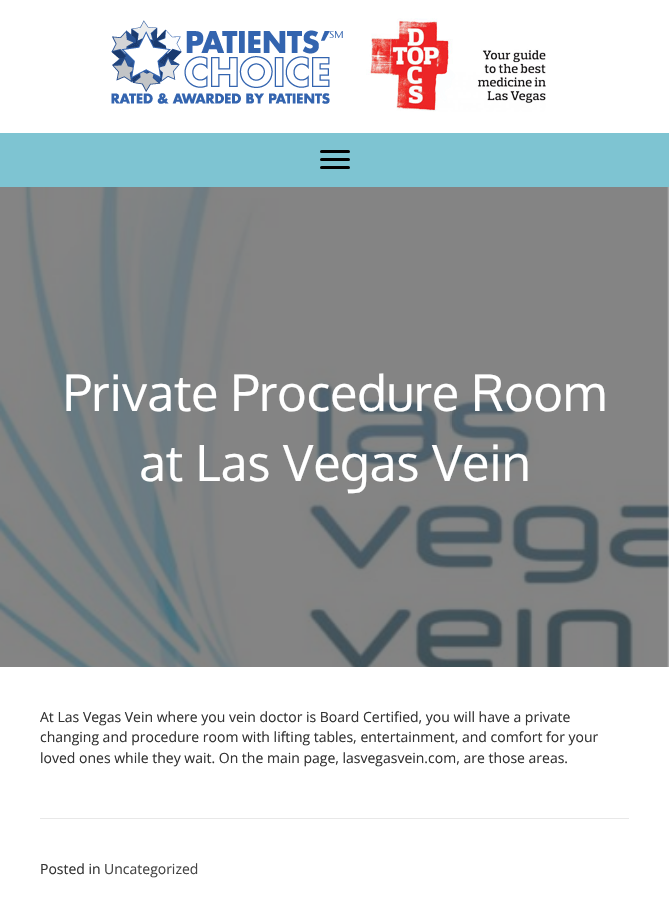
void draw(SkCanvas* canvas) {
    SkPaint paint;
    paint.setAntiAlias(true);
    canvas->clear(0xFFFFFFFF);
    canvas->drawImageRect(SkImages::DeferredFromEncodedData(SkData::MakeFromFileName("img1.png")), SkRect::MakeXYWH(111, 18, 435, 94), SkSamplingOptions());
    paint.setColor(0xFF7EC4D2);
    canvas->drawRect(SkRect::MakeXYWH(0, 133, 669, 54), paint);
    paint.setColor(0xFF000000);
    canvas->drawRoundRect(SkRect::MakeXYWH(320, 158, 30, 3), 1.5f, 1.5f, paint);
    canvas->drawRoundRect(SkRect::MakeXYWH(320, 150, 30, 3), 1.5f, 1.5f, paint);
    canvas->drawRoundRect(SkRect::MakeXYWH(320, 166, 30, 3), 1.5f, 1.5f, paint);
    canvas->drawImageRect(SkImages::DeferredFromEncodedData(SkData::MakeFromFileName("img2.png")), SkRect::MakeXYWH(0, 187, 669, 480), SkSamplingOptions());
    SkFont font1(fontMgr->matchFamilyStyle("Oxygen", SkFontStyle::Normal()), 50);
    font1.setSubpixel(true);
    paint.setColor(0xFFFFFFFF);
    canvas->drawString("Private Procedure Room", 63, 411, font1, paint);
    canvas->drawString("at Las Vegas Vein", 139, 481, font1, paint);
    SkFont font2(fontMgr->matchFamilyStyle("Open Sans", SkFontStyle::Normal()), 14);
    font2.setSubpixel(true);
    paint.setColor(0xFF333333);
    canvas->drawString("At Las Vegas Vein where you vein doctor is Board Certified, you will have a private", 40, 722, font2, paint);
    canvas->drawString("changing and procedure room with lifting tables, entertainment, and comfort for your", 40, 742, font2, paint);
    canvas->drawString("loved ones while they wait. On the main page, lasvegasvein.com, are those areas.", 40, 763, font2, paint);
    paint.setColor(0xFFE8E8E8);
    canvas->drawRect(SkRect::MakeXYWH(40, 818, 589, 1), paint);
    paint.setColor(0xFF333333);
    canvas->drawString("Posted in", 40, 874, font2, paint);
    paint.setColor(0xFF444444);
    canvas->drawString("Uncategorized", 104, 874, font2, paint);
}
